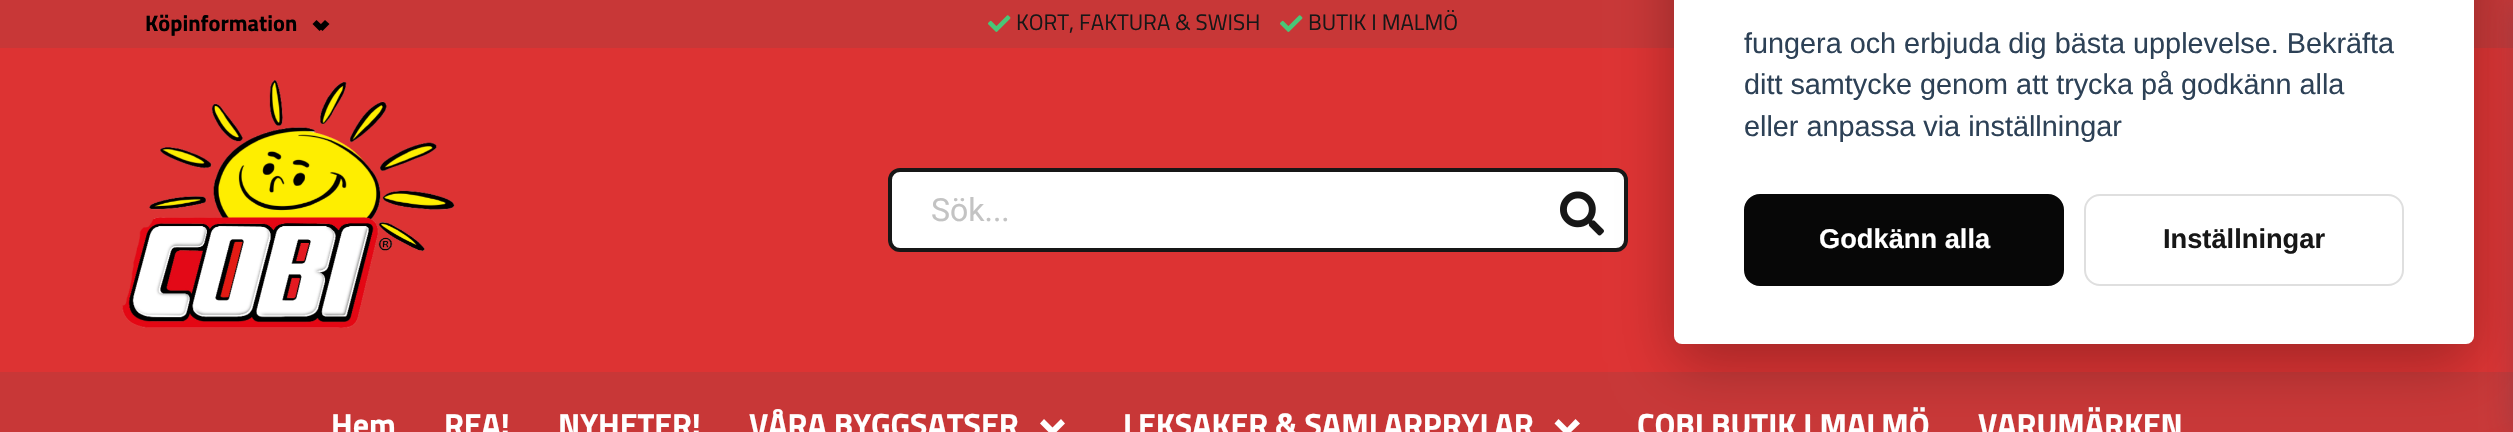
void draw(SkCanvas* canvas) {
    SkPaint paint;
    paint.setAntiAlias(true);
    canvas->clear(0xFFDD3333);
    paint.setColor(0xFFC83737);
    canvas->drawRect(SkRect::MakeXYWH(0, 0, 2513, 48), paint);
    SkFont font1(fontMgr->matchFamilyStyle("Titillium Web", SkFontStyle::Bold()), 22.4f);
    font1.setSubpixel(true);
    paint.setColor(0xFF000000);
    canvas->drawString("Köpinformation", 145, 31, font1, paint);
    canvas->drawPath(SkPathBuilder().moveTo(318, 27).lineTo(325, 20).lineTo(329.5f, 24).lineTo(322.5f, 31).close().detach(), paint);
    canvas->drawPath(SkPathBuilder().moveTo(312.5f, 24).lineTo(316.5f, 20).lineTo(324, 27).lineTo(319.5f, 31).close().detach(), paint);
    canvas->drawImageRect(SkImages::DeferredFromEncodedData(SkData::MakeFromFileName("img1.png")), SkRect::MakeXYWH(988, 15, 23, 17), SkSamplingOptions());
    SkFont font2(fontMgr->matchFamilyStyle("Titillium Web", SkFontStyle::Normal()), 22.4f);
    font2.setSubpixel(true);
    paint.setColor(0xFF171717);
    canvas->drawString("KORT, FAKTURA & SWISH", 1016, 30, font2, paint);
    canvas->drawImageRect(SkImages::DeferredFromEncodedData(SkData::MakeFromFileName("img1.png")), SkRect::MakeXYWH(1280, 15, 23, 17), SkSamplingOptions());
    canvas->drawString("BUTIK I MALMÖ", 1308, 30, font2, paint);
    canvas->drawImageRect(SkImages::DeferredFromEncodedData(SkData::MakeFromFileName("img2.png")), SkRect::MakeXYWH(122, 80, 333, 248), SkSamplingOptions());
    paint.setColor(0xFFFFFFFF);
    canvas->drawRoundRect(SkRect::MakeXYWH(890, 170, 736, 80), 10, 10, paint);
    paint.setStyle(SkPaint::kStroke_Style);
    paint.setStrokeWidth(4);
    paint.setColor(0xFF171717);
    canvas->drawRoundRect(SkRect::MakeXYWH(890, 170, 736, 80), 10, 10, paint);
    SkFont font3(fontMgr->matchFamilyStyle("Roboto", SkFontStyle::Normal()), 32);
    font3.setSubpixel(true);
    paint.setStyle(SkPaint::kFill_Style);
    paint.setColor(0xFFC3C3C3);
    canvas->drawString("Sök...", 931, 221, font3, paint);
    canvas->drawImageRect(SkImages::DeferredFromEncodedData(SkData::MakeFromFileName("img3.png")), SkRect::MakeXYWH(1560, 191, 44, 45), SkSamplingOptions());
    paint.setColor(0xFFC83737);
    canvas->drawRect(SkRect::MakeXYWH(0, 372, 2513, 60), paint);
    SkFont font4(fontMgr->matchFamilyStyle("Titillium Web", SkFontStyle::Bold()), 32);
    font4.setSubpixel(true);
    paint.setColor(0xFFFFFFFF);
    canvas->drawString("Hem", 331, 436, font4, paint);
    canvas->drawString("REA!", 444, 436, font4, paint);
    canvas->drawString("NYHETER!", 558, 436, font4, paint);
    canvas->drawString("VÅRA BYGGSATSER", 749, 436, font4, paint);
    canvas->drawPath(SkPathBuilder().moveTo(1049.5f, 430.5f).lineTo(1061, 419).lineTo(1065, 423.5f).lineTo(1054, 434.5f).close().detach(), paint);
    canvas->drawPath(SkPathBuilder().moveTo(1040, 423.5f).lineTo(1044, 419).lineTo(1055.5f, 430.5f).lineTo(1051, 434.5f).close().detach(), paint);
    canvas->drawString("LEKSAKER & SAMLARPRYLAR", 1123, 436, font4, paint);
    canvas->drawPath(SkPathBuilder().moveTo(1564.5f, 430.5f).lineTo(1575.5f, 419).lineTo(1580, 423.5f).lineTo(1568.5f, 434.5f).close().detach(), paint);
    canvas->drawPath(SkPathBuilder().moveTo(1554.5f, 423.5f).lineTo(1558.5f, 419).lineTo(1570, 430.5f).lineTo(1565.5f, 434.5f).close().detach(), paint);
    canvas->drawString("COBI BUTIK I MALMÖ", 1637, 436, font4, paint);
    canvas->drawString("VARUMÄRKEN", 1978, 436, font4, paint);
    paint.setColor(0x4D3C4257);
    paint.setMaskFilter(SkMaskFilter::MakeBlur(kNormal_SkBlurStyle, 15));
    canvas->drawRect(SkRect::MakeXYWH(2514, 2, 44, 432), paint);
    paint.setMaskFilter(nullptr);
    paint.setColor(0x47020203);
    paint.setMaskFilter(SkMaskFilter::MakeBlur(kNormal_SkBlurStyle, 30));
    canvas->drawRoundRect(SkRect::MakeXYWH(1674, -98, 800, 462), 8, 8, paint);
    paint.setMaskFilter(nullptr);
    paint.setColor(0xFFFFFFFF);
    canvas->drawRoundRect(SkRect::MakeXYWH(1674, -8, 800, 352), 8, 8, paint);
    SkFont font5(fontMgr->matchFamilyStyle("Liberation Sans", SkFontStyle::Normal()), 28.8f);
    font5.setSubpixel(true);
    paint.setColor(0xFF2D4156);
    canvas->drawString("fungera och erbjuda dig bästa upplevelse. Bekräfta", 1744, 53, font5, paint);
    canvas->drawString("ditt samtycke genom att trycka på godkänn alla", 1744, 94, font5, paint);
    canvas->drawString("eller anpassa via inställningar", 1744, 136, font5, paint);
    paint.setColor(0xFF070707);
    canvas->drawRoundRect(SkRect::MakeXYWH(1745, 195, 318, 90), 15, 15, paint);
    paint.setStyle(SkPaint::kStroke_Style);
    paint.setStrokeWidth(2);
    canvas->drawRoundRect(SkRect::MakeXYWH(1745, 195, 318, 90), 15, 15, paint);
    SkFont font6(fontMgr->matchFamilyStyle("Liberation Sans", SkFontStyle::Bold()), 27.25f);
    font6.setSubpixel(true);
    paint.setStyle(SkPaint::kFill_Style);
    paint.setColor(0xFFFFFFFF);
    canvas->drawString("Godkänn alla", 1819, 248, font6, paint);
    paint.setStyle(SkPaint::kStroke_Style);
    paint.setColor(0xFFDFDFDF);
    canvas->drawRoundRect(SkRect::MakeXYWH(2085, 195, 318, 90), 15, 15, paint);
    paint.setStyle(SkPaint::kFill_Style);
    paint.setColor(0xFF171717);
    canvas->drawString("Inställningar", 2163, 248, font6, paint);
}
